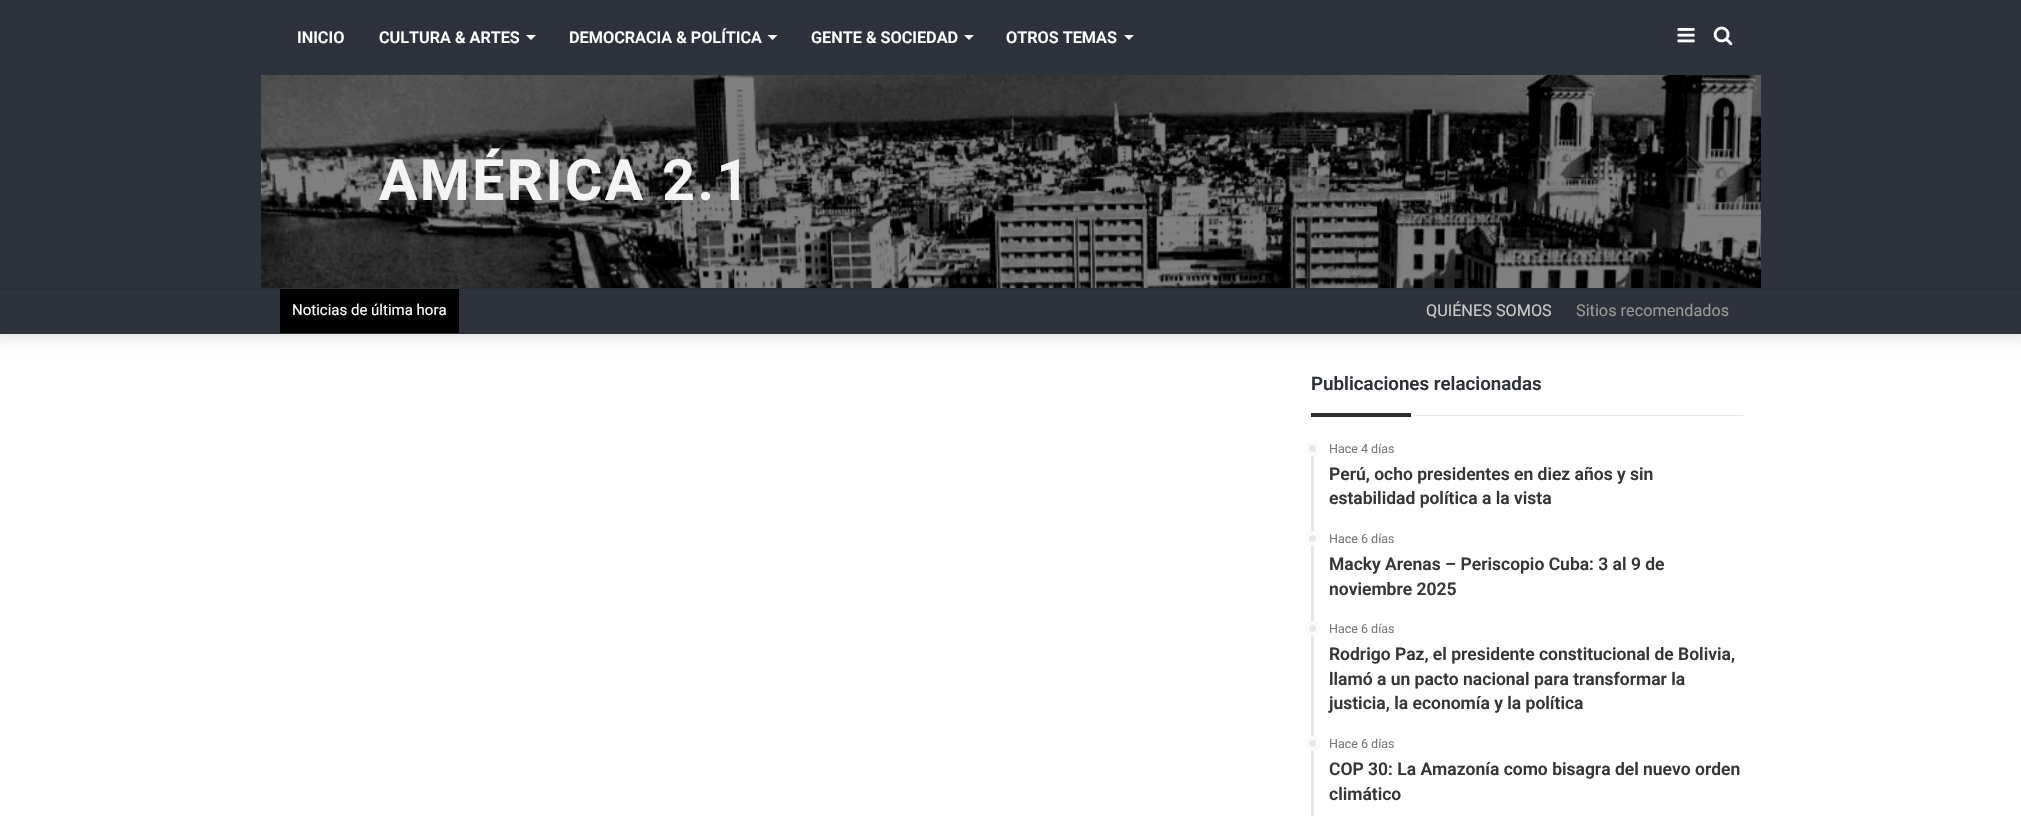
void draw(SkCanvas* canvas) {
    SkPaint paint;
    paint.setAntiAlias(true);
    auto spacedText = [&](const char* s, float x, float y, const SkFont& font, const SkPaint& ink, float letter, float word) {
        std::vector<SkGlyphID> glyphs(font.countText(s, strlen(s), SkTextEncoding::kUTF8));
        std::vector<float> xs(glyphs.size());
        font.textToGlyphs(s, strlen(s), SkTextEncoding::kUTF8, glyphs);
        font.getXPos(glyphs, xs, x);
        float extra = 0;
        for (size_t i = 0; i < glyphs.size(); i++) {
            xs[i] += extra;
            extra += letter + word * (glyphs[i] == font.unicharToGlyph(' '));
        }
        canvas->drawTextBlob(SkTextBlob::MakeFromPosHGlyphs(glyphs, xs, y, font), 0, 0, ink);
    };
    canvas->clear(0xFFFFFFFF);
    paint.setColor(0x1A000000);
    paint.setMaskFilter(SkMaskFilter::MakeBlur(kNormal_SkBlurStyle, 6));
    canvas->drawRect(SkRect::MakeXYWH(-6, -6, 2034, 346), paint);
    paint.setMaskFilter(nullptr);
    paint.setColor(0xFF2E323C);
    canvas->drawRect(SkRect::MakeXYWH(0, 0, 2021, 333), paint);
    SkFont font1(fontMgr->matchFamilyStyle("Roboto", SkFontStyle(600, SkFontStyle::kNormal_Width, SkFontStyle::kUpright_Slant)), 16.25f);
    font1.setSubpixel(true);
    paint.setColor(0xFFFFFFFF);
    canvas->drawString("INICIO", 297, 43, font1, paint);
    canvas->drawString("CULTURA & ARTES", 379, 43, font1, paint);
    canvas->drawPath(SkPathBuilder().moveTo(526, 35).lineTo(536, 35).lineTo(531, 40).close().detach(), paint);
    canvas->drawString("DEMOCRACIA & POLÍTICA", 569, 43, font1, paint);
    canvas->drawPath(SkPathBuilder().moveTo(767.5f, 35).lineTo(777.5f, 35).lineTo(772.5f, 40).close().detach(), paint);
    canvas->drawString("GENTE & SOCIEDAD", 811, 43, font1, paint);
    canvas->drawPath(SkPathBuilder().moveTo(964, 35).lineTo(974, 35).lineTo(969, 40).close().detach(), paint);
    canvas->drawString("OTROS TEMAS", 1006, 43, font1, paint);
    canvas->drawPath(SkPathBuilder().moveTo(1124, 35).lineTo(1134, 35).lineTo(1129, 40).close().detach(), paint);
    canvas->drawImageRect(SkImages::DeferredFromEncodedData(SkData::MakeFromFileName("img1.png")), SkRect::MakeXYWH(1677, 28, 18, 15), SkSamplingOptions());
    canvas->drawImageRect(SkImages::DeferredFromEncodedData(SkData::MakeFromFileName("img2.png")), SkRect::MakeXYWH(1713, 26, 20, 20), SkSamplingOptions());
    canvas->drawImageRect(SkImages::DeferredFromEncodedData(SkData::MakeFromFileName("img3.png")), SkRect::MakeXYWH(261, 75, 1500, 213), SkSamplingOptions());
    SkFont font2(fontMgr->matchFamilyStyle("Roboto", SkFontStyle::Bold()), 57);
    font2.setSubpixel(true);
    paint.setColor(0xFFF4F4F4);
    spacedText("AMÉRICA 2.1", 379, 200, font2, paint, 2.5f, 0);
    paint.setColor(0xFF292D36);
    canvas->drawRect(SkRect::MakeXYWH(0, 288, 2021, 1), paint);
    canvas->drawRect(SkRect::MakeXYWH(0, 333, 2021, 1), paint);
    paint.setColor(0xFF000000);
    canvas->drawRect(SkRect::MakeXYWH(280, 289, 179, 44), paint);
    SkFont font3(fontMgr->matchFamilyStyle("Roboto", SkFontStyle::Normal()), 15);
    font3.setSubpixel(true);
    paint.setColor(0xFFFFFFFF);
    canvas->drawString("Noticias de última hora", 292, 315, font3, paint);
    SkFont font4(fontMgr->matchFamilyStyle("Roboto", SkFontStyle::Normal()), 16.25f);
    font4.setSubpixel(true);
    paint.setColor(0xFFCCCCCC);
    canvas->drawString("QUIÉNES SOMOS", 1426, 316, font4, paint);
    paint.setColor(0xFF999999);
    canvas->drawString("Sitios recomendados", 1576, 316, font4, paint);
    paint.setColor(0xFFE6E6E6);
    canvas->drawRect(SkRect::MakeXYWH(1411, 415, 332, 1), paint);
    SkFont font5(fontMgr->matchFamilyStyle("Roboto", SkFontStyle(600, SkFontStyle::kNormal_Width, SkFontStyle::kUpright_Slant)), 18.75f);
    font5.setSubpixel(true);
    paint.setColor(0xFF2E3136);
    canvas->drawString("Publicaciones relacionadas", 1311, 390, font5, paint);
    paint.setColor(0xFF292B2F);
    canvas->drawRect(SkRect::MakeXYWH(1311, 413, 100, 4), paint);
    paint.setColor(0xFFE6E6E6);
    canvas->drawRect(SkRect::MakeXYWH(1311, 441, 3, 375), paint);
    canvas->drawCircle(1312.5f, 448.5f, 7.5f, paint);
    paint.setStyle(SkPaint::kStroke_Style);
    paint.setStrokeWidth(4);
    paint.setColor(0xCCFFFFFF);
    canvas->drawCircle(1312.5f, 448.5f, 5.5f, paint);
    SkFont font6(fontMgr->matchFamilyStyle("Roboto", SkFontStyle::Normal()), 12.5f);
    font6.setSubpixel(true);
    paint.setStyle(SkPaint::kFill_Style);
    paint.setColor(0xFF777777);
    canvas->drawString("Hace 4 días", 1329, 453, font6, paint);
    SkFont font7(fontMgr->matchFamilyStyle("Roboto", SkFontStyle(600, SkFontStyle::kNormal_Width, SkFontStyle::kUpright_Slant)), 17.5f);
    font7.setSubpixel(true);
    paint.setColor(0xFF353535);
    canvas->drawString("Perú, ocho presidentes en diez años y sin", 1329, 480, font7, paint);
    canvas->drawString("estabilidad política a la vista", 1329, 504, font7, paint);
    paint.setColor(0xFFE6E6E6);
    canvas->drawCircle(1312.5f, 538.5f, 7.5f, paint);
    paint.setStyle(SkPaint::kStroke_Style);
    paint.setColor(0xCCFFFFFF);
    canvas->drawCircle(1312.5f, 538.5f, 5.5f, paint);
    paint.setStyle(SkPaint::kFill_Style);
    paint.setColor(0xFF777777);
    canvas->drawString("Hace 6 días", 1329, 543, font6, paint);
    paint.setColor(0xFF353535);
    canvas->drawString("Macky Arenas – Periscopio Cuba: 3 al 9 de", 1329, 570, font7, paint);
    canvas->drawString("noviembre 2025", 1329, 595, font7, paint);
    paint.setColor(0xFFE6E6E6);
    canvas->drawCircle(1312.5f, 628.5f, 7.5f, paint);
    paint.setStyle(SkPaint::kStroke_Style);
    paint.setColor(0xCCFFFFFF);
    canvas->drawCircle(1312.5f, 628.5f, 5.5f, paint);
    paint.setStyle(SkPaint::kFill_Style);
    paint.setColor(0xFF777777);
    canvas->drawString("Hace 6 días", 1329, 633, font6, paint);
    paint.setColor(0xFF353535);
    canvas->drawString("Rodrigo Paz, el presidente constitucional de Bolivia,", 1329, 660, font7, paint);
    canvas->drawString("llamó a un pacto nacional para transformar la", 1329, 685, font7, paint);
    canvas->drawString("justicia, la economía y la política", 1329, 709, font7, paint);
    paint.setColor(0xFFE6E6E6);
    canvas->drawCircle(1312.5f, 743.5f, 7.5f, paint);
    paint.setStyle(SkPaint::kStroke_Style);
    paint.setColor(0xCCFFFFFF);
    canvas->drawCircle(1312.5f, 743.5f, 5.5f, paint);
    paint.setStyle(SkPaint::kFill_Style);
    paint.setColor(0xFF777777);
    canvas->drawString("Hace 6 días", 1329, 748, font6, paint);
    paint.setColor(0xFF353535);
    canvas->drawString("COP 30: La Amazonía como bisagra del nuevo orden", 1329, 775, font7, paint);
    canvas->drawString("climático", 1329, 800, font7, paint);
}
